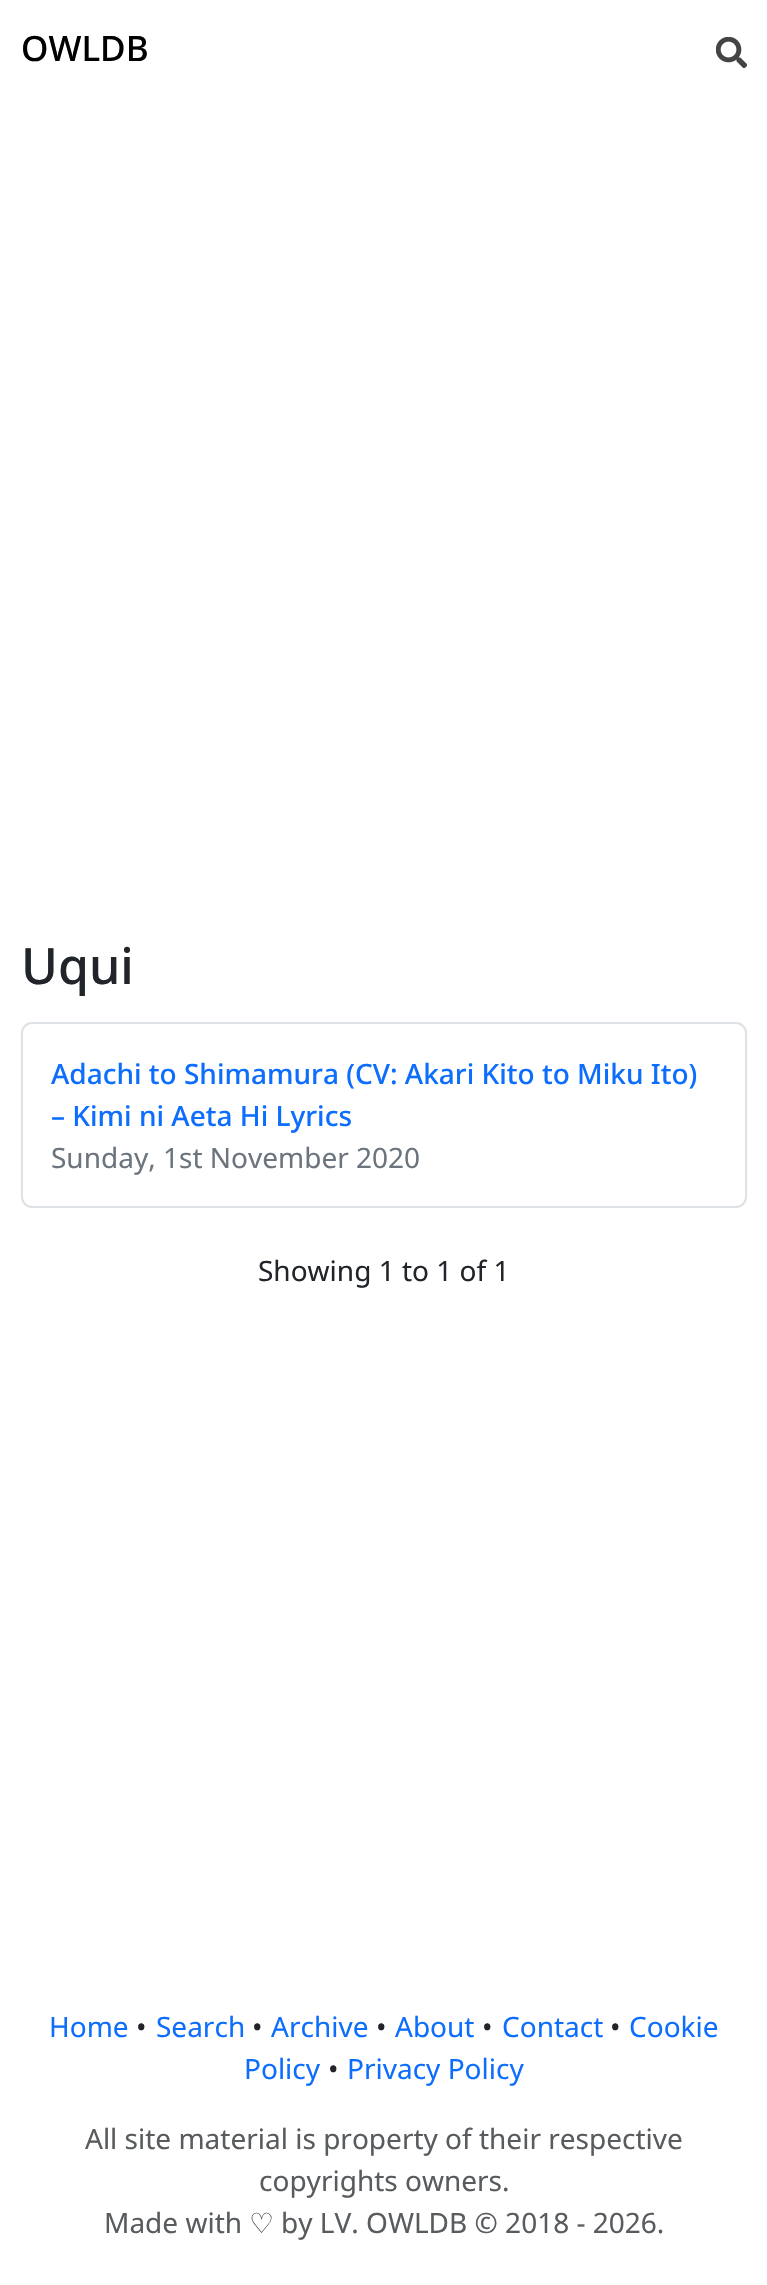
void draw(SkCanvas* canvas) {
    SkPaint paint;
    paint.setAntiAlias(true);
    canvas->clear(0xFFFFFFFF);
    SkFont font1(fontMgr->matchFamilyStyle("Noto Sans", SkFontStyle(500, SkFontStyle::kNormal_Width, SkFontStyle::kUpright_Slant)), 35);
    font1.setSubpixel(true);
    paint.setColor(0xFF000000);
    canvas->drawString("OWLDB", 21, 61, font1, paint);
    canvas->drawImageRect(SkImages::DeferredFromEncodedData(SkData::MakeFromFileName("img1.png")), SkRect::MakeXYWH(716, 37, 31, 31), SkSamplingOptions());
    SkFont font2(fontMgr->matchFamilyStyle("Noto Sans", SkFontStyle(500, SkFontStyle::kNormal_Width, SkFontStyle::kUpright_Slant)), 50);
    font2.setSubpixel(true);
    paint.setColor(0xFF212529);
    canvas->drawString("Uqui", 21, 984, font2, paint);
    paint.setStyle(SkPaint::kStroke_Style);
    paint.setStrokeWidth(2);
    paint.setColor(0xFFDEE2E6);
    canvas->drawRoundRect(SkRect::MakeXYWH(22, 1023, 724, 184), 10, 10, paint);
    SkFont font3(fontMgr->matchFamilyStyle("Noto Sans", SkFontStyle(500, SkFontStyle::kNormal_Width, SkFontStyle::kUpright_Slant)), 28);
    font3.setSubpixel(true);
    paint.setStyle(SkPaint::kFill_Style);
    paint.setColor(0xFF0D6EFD);
    canvas->drawString("Adachi to Shimamura (CV: Akari Kito to Miku Ito)", 51, 1084, font3, paint);
    canvas->drawString("– Kimi ni Aeta Hi Lyrics", 51, 1126, font3, paint);
    SkFont font4(fontMgr->matchFamilyStyle("Noto Sans", SkFontStyle::Normal()), 28);
    font4.setSubpixel(true);
    paint.setColor(0xFF6C757D);
    canvas->drawString("Sunday, 1st November 2020", 51, 1168, font4, paint);
    paint.setColor(0xFF212529);
    canvas->drawString("Showing 1 to 1 of 1", 258, 1281, font4, paint);
    paint.setColor(0xFF0D6EFD);
    canvas->drawString("Home", 49, 2037, font4, paint);
    paint.setColor(0xFF212529);
    canvas->drawString("•", 136, 2037, font4, paint);
    paint.setColor(0xFF0D6EFD);
    canvas->drawString("Search", 156, 2037, font4, paint);
    paint.setColor(0xFF212529);
    canvas->drawString("•", 252, 2037, font4, paint);
    paint.setColor(0xFF0D6EFD);
    canvas->drawString("Archive", 271, 2037, font4, paint);
    paint.setColor(0xFF212529);
    canvas->drawString("•", 376, 2037, font4, paint);
    paint.setColor(0xFF0D6EFD);
    canvas->drawString("About", 395, 2037, font4, paint);
    paint.setColor(0xFF212529);
    canvas->drawString("•", 482, 2037, font4, paint);
    paint.setColor(0xFF0D6EFD);
    canvas->drawString("Contact", 502, 2037, font4, paint);
    paint.setColor(0xFF212529);
    canvas->drawString("•", 610, 2037, font4, paint);
    paint.setColor(0xFF0D6EFD);
    canvas->drawString("Cookie", 629, 2037, font4, paint);
    canvas->drawString("Policy", 244, 2079, font4, paint);
    paint.setColor(0xFF212529);
    canvas->drawString("•", 328, 2079, font4, paint);
    paint.setColor(0xFF0D6EFD);
    canvas->drawString("Privacy Policy", 347, 2079, font4, paint);
    paint.setColor(0xFF595C5F);
    canvas->drawString("All site material is property of their respective", 85, 2149, font4, paint);
    canvas->drawString("copyrights owners.", 259, 2191, font4, paint);
    canvas->drawString("Made with", 104, 2233, font4, paint);
    SkFont font5(fontMgr->matchFamilyStyle("DejaVu Sans", SkFontStyle::Normal()), 28);
    font5.setSubpixel(true);
    canvas->drawString("♡", 249, 2233, font5, paint);
    canvas->drawString("by LV. OWLDB © 2018 - 2026.", 281, 2233, font4, paint);
}
